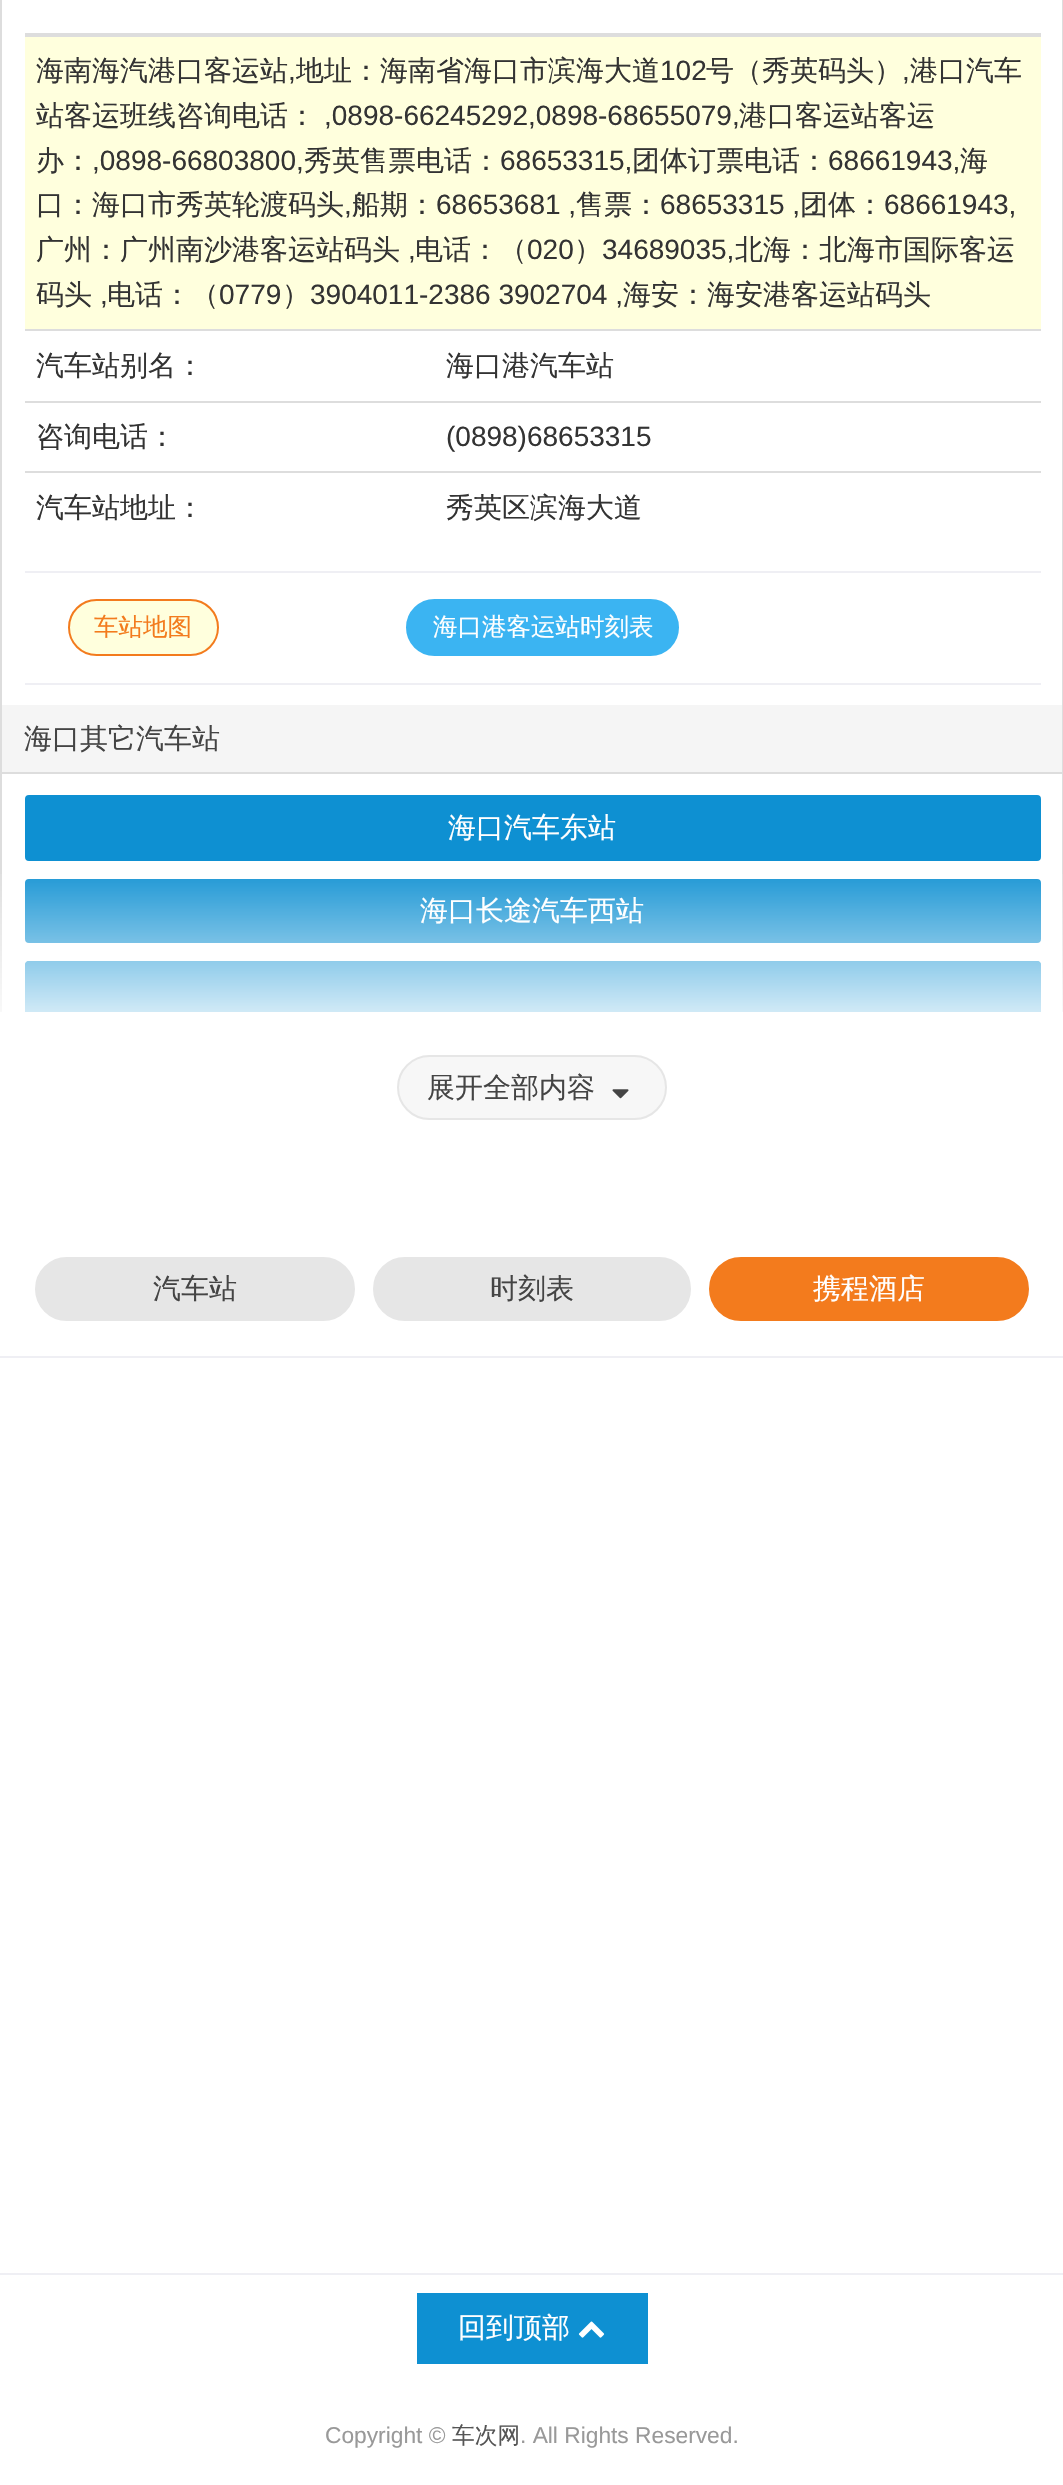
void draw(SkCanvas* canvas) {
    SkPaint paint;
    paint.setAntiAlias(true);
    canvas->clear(0xFFFFFFFF);
    canvas->save();
    canvas->clipRect(SkRect::MakeXYWH(0, 0, 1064, 1012));
    paint.setStyle(SkPaint::kStroke_Style);
    paint.setStrokeWidth(2);
    paint.setColor(0xFFDDDDDD);
    canvas->drawRect(SkRect::MakeXYWH(1, -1, 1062, 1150), paint);
    canvas->restore();
    paint.setStyle(SkPaint::kFill_Style);
    canvas->drawRect(SkRect::MakeXYWH(25, 33, 1016, 4), paint);
    paint.setColor(0xFFFFFFDD);
    canvas->drawRect(SkRect::MakeXYWH(25, 37, 1016, 292), paint);
    SkFont font1(fontMgr->matchFamilyStyle("WenQuanYi Zen Hei", SkFontStyle(500, SkFontStyle::kNormal_Width, SkFontStyle::kUpright_Slant)), 28);
    font1.setSubpixel(true);
    paint.setColor(0xFF333333);
    canvas->drawString("海南海汽港口客运站", 36, 80, font1, paint);
    SkFont font2(fontMgr->matchFamilyStyle("Liberation Sans", SkFontStyle::Normal()), 28);
    font2.setSubpixel(true);
    canvas->drawString(",", 288, 80, font2, paint);
    canvas->drawString("地址：海南省海口市滨海大道", 296, 80, font1, paint);
    canvas->drawString("102", 660, 80, font2, paint);
    canvas->drawString("号（秀英码头）", 706, 80, font1, paint);
    canvas->drawString(",", 902, 80, font2, paint);
    canvas->drawString("港口汽车", 910, 80, font1, paint);
    canvas->drawString("站客运班线咨询电话：", 36, 125, font1, paint);
    canvas->drawString(",0898-66245292,0898-68655079,", 324, 125, font2, paint);
    canvas->drawString("港口客运站客运", 739, 125, font1, paint);
    canvas->drawString("办：", 36, 170, font1, paint);
    canvas->drawString(",0898-66803800,", 92, 170, font2, paint);
    canvas->drawString("秀英售票电话：", 304, 170, font1, paint);
    canvas->drawString("68653315,", 500, 170, font2, paint);
    canvas->drawString("团体订票电话：", 632, 170, font1, paint);
    canvas->drawString("68661943,", 828, 170, font2, paint);
    canvas->drawString("海", 960, 170, font1, paint);
    canvas->drawString("口：海口市秀英轮渡码头", 36, 214, font1, paint);
    canvas->drawString(",", 344, 214, font2, paint);
    canvas->drawString("船期：", 352, 214, font1, paint);
    canvas->drawString("68653681 ,", 436, 214, font2, paint);
    canvas->drawString("售票：", 576, 214, font1, paint);
    canvas->drawString("68653315 ,", 660, 214, font2, paint);
    canvas->drawString("团体：", 800, 214, font1, paint);
    canvas->drawString("68661943,", 884, 214, font2, paint);
    canvas->drawString("广州：广州南沙港客运站码头", 36, 259, font1, paint);
    canvas->drawString(",", 408, 259, font2, paint);
    canvas->drawString("电话：（", 415, 259, font1, paint);
    canvas->drawString("020", 527, 259, font2, paint);
    canvas->drawString("）", 574, 259, font1, paint);
    canvas->drawString("34689035,", 602, 259, font2, paint);
    canvas->drawString("北海：北海市国际客运", 735, 259, font1, paint);
    canvas->drawString("码头", 36, 304, font1, paint);
    canvas->drawString(",", 100, 304, font2, paint);
    canvas->drawString("电话：（", 107, 304, font1, paint);
    canvas->drawString("0779", 219, 304, font2, paint);
    canvas->drawString("）", 282, 304, font1, paint);
    canvas->drawString("3904011-2386 3902704 ,", 310, 304, font2, paint);
    canvas->drawString("海安：海安港客运站码头", 623, 304, font1, paint);
    paint.setColor(0xFFDDDDDD);
    canvas->drawRect(SkRect::MakeXYWH(25, 329, 1016, 2), paint);
    paint.setColor(0xFF333333);
    canvas->drawString("汽车站别名：", 36, 375, font1, paint);
    canvas->drawString("海口港汽车站", 446, 375, font1, paint);
    paint.setColor(0xFFDDDDDD);
    canvas->drawRect(SkRect::MakeXYWH(25, 401, 1016, 2), paint);
    paint.setColor(0xFF333333);
    canvas->drawString("咨询电话：", 36, 446, font1, paint);
    canvas->drawString("(0898)68653315", 446, 446, font2, paint);
    paint.setColor(0xFFDDDDDD);
    canvas->drawRect(SkRect::MakeXYWH(25, 471, 1016, 2), paint);
    paint.setColor(0xFF333333);
    canvas->drawString("汽车站地址：", 36, 517, font1, paint);
    canvas->drawString("秀英区滨海大道", 446, 517, font1, paint);
    paint.setColor(0xFFEFEFF4);
    canvas->drawRect(SkRect::MakeXYWH(25, 571, 1016, 2), paint);
    paint.setColor(0xFFFFFFDD);
    canvas->drawRoundRect(SkRect::MakeXYWH(69, 600, 149, 55), 27.5f, 27.5f, paint);
    paint.setStyle(SkPaint::kStroke_Style);
    paint.setColor(0xFFF37B1D);
    canvas->drawRoundRect(SkRect::MakeXYWH(69, 600, 149, 55), 27.5f, 27.5f, paint);
    SkFont font3(fontMgr->matchFamilyStyle("WenQuanYi Zen Hei", SkFontStyle(500, SkFontStyle::kNormal_Width, SkFontStyle::kUpright_Slant)), 24.5f);
    font3.setSubpixel(true);
    paint.setStyle(SkPaint::kFill_Style);
    canvas->drawString("车站地图", 94, 635, font3, paint);
    paint.setColor(0xFF3BB4F2);
    canvas->drawRoundRect(SkRect::MakeXYWH(407, 600, 271, 55), 27.5f, 27.5f, paint);
    paint.setStyle(SkPaint::kStroke_Style);
    canvas->drawRoundRect(SkRect::MakeXYWH(407, 600, 271, 55), 27.5f, 27.5f, paint);
    paint.setStyle(SkPaint::kFill_Style);
    paint.setColor(0xFFFFFFFF);
    canvas->drawString("海口港客运站时刻表", 433, 635, font3, paint);
    paint.setColor(0xFFEFEFF4);
    canvas->drawRect(SkRect::MakeXYWH(25, 683, 1016, 2), paint);
    paint.setColor(0xFFF5F5F5);
    canvas->drawRect(SkRect::MakeXYWH(2, 705, 1060, 67), paint);
    paint.setColor(0xFFDDDDDD);
    canvas->drawRect(SkRect::MakeXYWH(2, 772, 1060, 2), paint);
    paint.setColor(0xFF444444);
    canvas->drawString("海口其它汽车站", 24, 748, font1, paint);
    paint.setColor(0xFF0E90D2);
    canvas->drawRoundRect(SkRect::MakeXYWH(26, 796, 1014, 64), 3, 3, paint);
    paint.setStyle(SkPaint::kStroke_Style);
    canvas->drawRoundRect(SkRect::MakeXYWH(26, 796, 1014, 64), 3, 3, paint);
    paint.setStyle(SkPaint::kFill_Style);
    paint.setColor(0xFFFFFFFF);
    canvas->drawString("海口汽车东站", 448, 837, font1, paint);
    paint.setColor(0xFF0E90D2);
    canvas->drawRoundRect(SkRect::MakeXYWH(26, 880, 1014, 62), 3, 3, paint);
    paint.setStyle(SkPaint::kStroke_Style);
    canvas->drawRoundRect(SkRect::MakeXYWH(26, 880, 1014, 62), 3, 3, paint);
    paint.setStyle(SkPaint::kFill_Style);
    paint.setColor(0xFFFFFFFF);
    canvas->drawString("海口长途汽车西站", 420, 920, font1, paint);
    paint.setColor(0xFF0E90D2);
    canvas->drawPath(SkPathBuilder().moveTo(29, 961).lineTo(1037, 961).cubicTo(1039, 961, 1041, 963, 1041, 965).lineTo(1041, 1012).lineTo(25, 1012).lineTo(25, 965).cubicTo(25, 963, 27, 961, 29, 961).close().detach(), paint);
    canvas->save();
    canvas->clipRect(SkRect::MakeXYWH(0, 0, 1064, 1012));
    paint.setStyle(SkPaint::kStroke_Style);
    canvas->drawRoundRect(SkRect::MakeXYWH(26, 962, 1014, 63), 3, 3, paint);
    canvas->restore();
    paint.setStyle(SkPaint::kFill_Style);
    {
        const SkColor colors[] = {0x00FFFFFF, 0xFFFFFFFF};
        const float stops[] = {0, 0.7f};
        const SkPoint ends[] = {{532, 859}, {532, 1131}};
        paint.setShader(SkGradientShader::MakeLinear(ends, colors, stops, 2, SkTileMode::kClamp));
        paint.setAlpha(255);
    }
    canvas->drawRect(SkRect::MakeXYWH(0, 874, 1063, 138), paint);
    paint.setShader(nullptr);
    paint.setColor(0xFFF7F7F7);
    canvas->drawRoundRect(SkRect::MakeXYWH(398, 1056, 268, 63), 31.5f, 31.5f, paint);
    paint.setStyle(SkPaint::kStroke_Style);
    paint.setColor(0xFFE6E6E6);
    canvas->drawRoundRect(SkRect::MakeXYWH(398, 1056, 268, 63), 31.5f, 31.5f, paint);
    paint.setStyle(SkPaint::kFill_Style);
    paint.setColor(0xFF444444);
    canvas->drawString("展开全部内容", 427, 1097, font1, paint);
    canvas->drawImageRect(SkImages::DeferredFromEncodedData(SkData::MakeFromFileName("img1.png")), SkRect::MakeXYWH(612, 1089, 17, 10), SkSamplingOptions());
    paint.setColor(0xFFE6E6E6);
    canvas->drawRoundRect(SkRect::MakeXYWH(36, 1258, 318, 62), 31, 31, paint);
    paint.setStyle(SkPaint::kStroke_Style);
    canvas->drawRoundRect(SkRect::MakeXYWH(36, 1258, 318, 62), 31, 31, paint);
    paint.setStyle(SkPaint::kFill_Style);
    paint.setColor(0xFF444444);
    canvas->drawString("汽车站", 153, 1298, font1, paint);
    paint.setColor(0xFFE6E6E6);
    canvas->drawRoundRect(SkRect::MakeXYWH(374, 1258, 316, 62), 31, 31, paint);
    paint.setStyle(SkPaint::kStroke_Style);
    canvas->drawRoundRect(SkRect::MakeXYWH(374, 1258, 316, 62), 31, 31, paint);
    paint.setStyle(SkPaint::kFill_Style);
    paint.setColor(0xFF444444);
    canvas->drawString("时刻表", 490, 1298, font1, paint);
    paint.setColor(0xFFF37B1D);
    canvas->drawRoundRect(SkRect::MakeXYWH(710, 1258, 318, 62), 31, 31, paint);
    paint.setStyle(SkPaint::kStroke_Style);
    canvas->drawRoundRect(SkRect::MakeXYWH(710, 1258, 318, 62), 31, 31, paint);
    paint.setStyle(SkPaint::kFill_Style);
    paint.setColor(0xFFFFFFFF);
    canvas->drawString("携程酒店", 813, 1298, font1, paint);
    paint.setColor(0xFFEFEFF4);
    canvas->drawRect(SkRect::MakeXYWH(0, 1356, 1063, 2), paint);
    canvas->drawRect(SkRect::MakeXYWH(0, 2273, 1063, 2), paint);
    paint.setColor(0xFF0E90D2);
    canvas->drawRect(SkRect::MakeXYWH(417, 2293, 231, 71), paint);
    paint.setColor(0xFFFFFFFF);
    canvas->drawString("回到顶部", 458, 2337, font1, paint);
    canvas->drawImageRect(SkImages::DeferredFromEncodedData(SkData::MakeFromFileName("img2.png")), SkRect::MakeXYWH(578, 2321, 27, 17), SkSamplingOptions());
    SkFont font4(fontMgr->matchFamilyStyle("Liberation Sans", SkFontStyle::Normal()), 22.75f);
    font4.setSubpixel(true);
    paint.setColor(0xFF999999);
    canvas->drawString("Copyright ©", 325, 2443, font4, paint);
    SkFont font5(fontMgr->matchFamilyStyle("WenQuanYi Zen Hei", SkFontStyle(500, SkFontStyle::kNormal_Width, SkFontStyle::kUpright_Slant)), 22.75f);
    font5.setSubpixel(true);
    paint.setColor(0xFF555555);
    canvas->drawString("车次网", 452, 2443, font5, paint);
    paint.setColor(0xFF999999);
    canvas->drawString(". All Rights Reserved.", 520, 2443, font4, paint);
}
